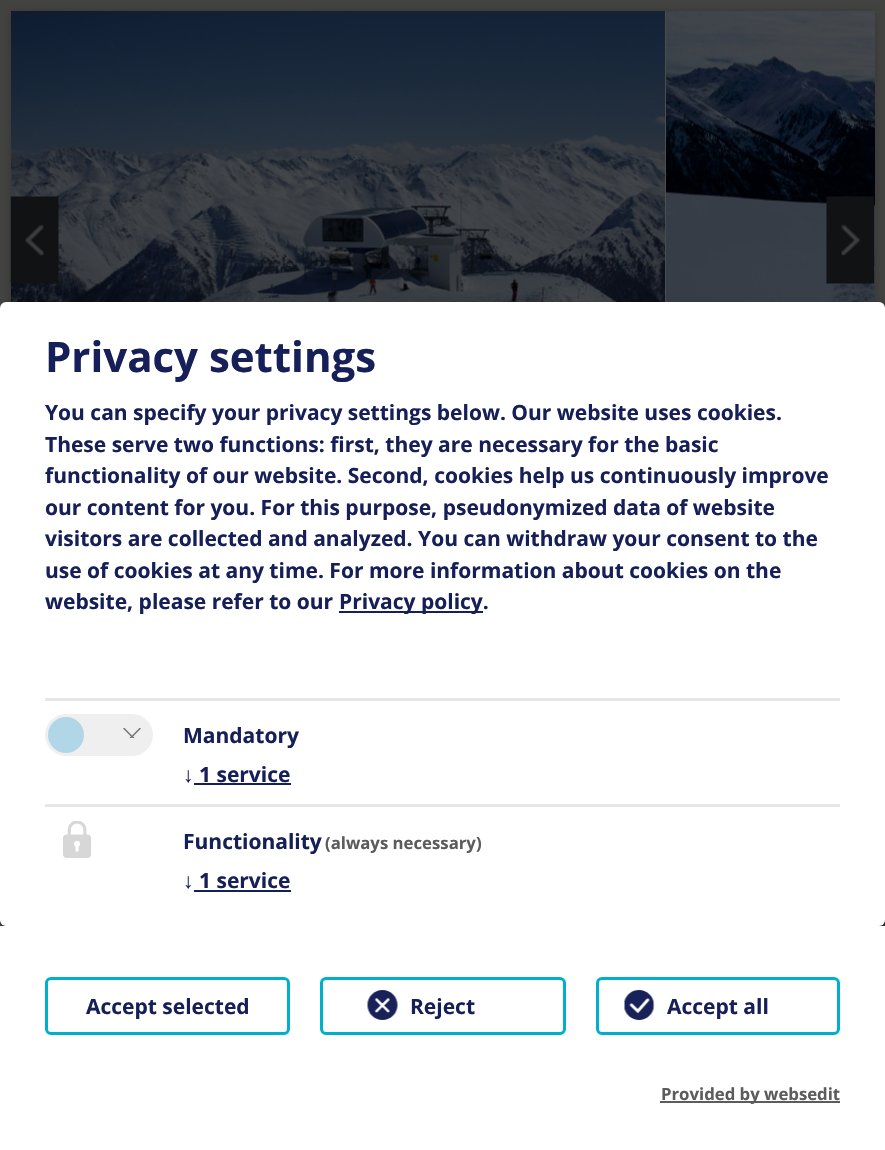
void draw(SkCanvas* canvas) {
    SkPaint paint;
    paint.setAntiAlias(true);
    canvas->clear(0xFF424240);
    paint.setColor(0x33000000);
    paint.setMaskFilter(SkMaskFilter::MakeBlur(kNormal_SkBlurStyle, 4));
    canvas->drawRect(SkRect::MakeXYWH(11, 12, 864, 869), paint);
    paint.setMaskFilter(nullptr);
    paint.setColor(0xFF4D4D4D);
    canvas->drawRect(SkRect::MakeXYWH(665, 11, 1, 291), paint);
    canvas->drawImageRect(SkImages::DeferredFromEncodedData(SkData::MakeFromFileName("img1.png")), SkRect::MakeXYWH(11, 11, 654, 291), SkSamplingOptions());
    canvas->drawImageRect(SkImages::DeferredFromEncodedData(SkData::MakeFromFileName("img2.png")), SkRect::MakeXYWH(666, 11, 209, 291), SkSamplingOptions());
    canvas->drawImageRect(SkImages::DeferredFromEncodedData(SkData::MakeFromFileName("img3.png")), SkRect::MakeXYWH(10, 196, 49, 88), SkSamplingOptions());
    canvas->drawImageRect(SkImages::DeferredFromEncodedData(SkData::MakeFromFileName("img4.png")), SkRect::MakeXYWH(826, 196, 49, 88), SkSamplingOptions());
    paint.setColor(0x30000000);
    paint.setMaskFilter(SkMaskFilter::MakeBlur(kNormal_SkBlurStyle, 7.5f));
    canvas->drawRoundRect(SkRect::MakeXYWH(8, 309, 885, 624), 6, 6, paint);
    paint.setMaskFilter(nullptr);
    paint.setColor(0x33000000);
    paint.setMaskFilter(SkMaskFilter::MakeBlur(kNormal_SkBlurStyle, 4.5f));
    canvas->drawRoundRect(SkRect::MakeXYWH(0, 308, 885, 624), 6, 6, paint);
    paint.setMaskFilter(nullptr);
    paint.setColor(0xFFFFFFFF);
    canvas->drawRoundRect(SkRect::MakeXYWH(0, 302, 885, 624), 6, 6, paint);
    SkFont font1(fontMgr->matchFamilyStyle("Open Sans", SkFontStyle::Bold()), 42);
    font1.setSubpixel(true);
    paint.setColor(0xFF161F57);
    canvas->drawString("Privacy settings", 45, 372, font1, paint);
    SkFont font2(fontMgr->matchFamilyStyle("Open Sans", SkFontStyle::Bold()), 21);
    font2.setSubpixel(true);
    canvas->drawString("You can specify your privacy settings below. Our website uses cookies.", 45, 420, font2, paint);
    canvas->drawString("These serve two functions: first, they are necessary for the basic", 45, 452, font2, paint);
    canvas->drawString("functionality of our website. Second, cookies help us continuously improve", 45, 483, font2, paint);
    canvas->drawString("our content for you. For this purpose, pseudonymized data of website", 45, 515, font2, paint);
    canvas->drawString("visitors are collected and analyzed. You can withdraw your consent to the", 45, 546, font2, paint);
    canvas->drawString("use of cookies at any time. For more information about cookies on the", 45, 578, font2, paint);
    canvas->drawString("website, please refer to our", 45, 609, font2, paint);
    canvas->drawRect(SkRect::MakeXYWH(339, 611, 144, 2), paint);
    canvas->drawString("Privacy policy.", 339, 609, font2, paint);
    paint.setColor(0xFFE6E6E6);
    canvas->drawRect(SkRect::MakeXYWH(45, 698, 795, 3), paint);
    paint.setColor(0xFFEFEFEF);
    canvas->drawRoundRect(SkRect::MakeXYWH(45, 714, 108, 42), 21, 21, paint);
    paint.setColor(0xFFB1D6E8);
    canvas->drawCircle(66, 735, 18, paint);
    canvas->drawImageRect(SkImages::DeferredFromEncodedData(SkData::MakeFromFileName("img5.png")), SkRect::MakeXYWH(123, 728, 18, 10), SkSamplingOptions());
    paint.setColor(0xFF161F57);
    canvas->drawString("Mandatory", 183, 743, font2, paint);
    SkFont font3(fontMgr->matchFamilyStyle("Liberation Sans", SkFontStyle::Normal()), 21);
    font3.setSubpixel(true);
    canvas->drawString("↓", 183, 782, font3, paint);
    canvas->drawString("1 service", 199, 782, font2, paint);
    canvas->drawRect(SkRect::MakeXYWH(194, 783, 97, 2), paint);
    paint.setColor(0xFFE6E6E6);
    canvas->drawRect(SkRect::MakeXYWH(45, 804, 795, 3), paint);
    canvas->drawImageRect(SkImages::DeferredFromEncodedData(SkData::MakeFromFileName("img6.png")), SkRect::MakeXYWH(63, 821, 29, 37), SkSamplingOptions());
    paint.setColor(0xFF161F57);
    canvas->drawString("Functionality", 183, 849, font2, paint);
    SkFont font4(fontMgr->matchFamilyStyle("Open Sans", SkFontStyle::Bold()), 16.75f);
    font4.setSubpixel(true);
    paint.setColor(0xFF5C5C5C);
    canvas->drawString("(always necessary)", 325, 849, font4, paint);
    paint.setColor(0xFF161F57);
    canvas->drawString("↓", 183, 888, font3, paint);
    canvas->drawString("1 service", 199, 888, font2, paint);
    canvas->drawRect(SkRect::MakeXYWH(194, 890, 97, 2), paint);
    paint.setColor(0xFFFFFFFF);
    canvas->drawRect(SkRect::MakeXYWH(0, 926, 885, 224), paint);
    paint.setStyle(SkPaint::kStroke_Style);
    paint.setStrokeWidth(3);
    paint.setColor(0xFF00AFCB);
    canvas->drawRoundRect(SkRect::MakeXYWH(46.5f, 978.5f, 242, 55), 4.5f, 4.5f, paint);
    paint.setStyle(SkPaint::kFill_Style);
    paint.setColor(0xFF161F57);
    canvas->drawString("Accept selected", 86, 1014, font2, paint);
    paint.setStyle(SkPaint::kStroke_Style);
    paint.setColor(0xFF00AFCB);
    canvas->drawRoundRect(SkRect::MakeXYWH(321.5f, 978.5f, 243, 55), 4.5f, 4.5f, paint);
    canvas->drawImageRect(SkImages::DeferredFromEncodedData(SkData::MakeFromFileName("img7.png")), SkRect::MakeXYWH(367, 990, 31, 30), SkSamplingOptions());
    paint.setStyle(SkPaint::kFill_Style);
    paint.setColor(0xFF161F57);
    canvas->drawString("Reject", 410, 1014, font2, paint);
    paint.setStyle(SkPaint::kStroke_Style);
    paint.setColor(0xFF00AFCB);
    canvas->drawRoundRect(SkRect::MakeXYWH(597.5f, 978.5f, 241, 55), 4.5f, 4.5f, paint);
    canvas->drawImageRect(SkImages::DeferredFromEncodedData(SkData::MakeFromFileName("img8.png")), SkRect::MakeXYWH(624, 990, 31, 30), SkSamplingOptions());
    paint.setStyle(SkPaint::kFill_Style);
    paint.setColor(0xFF161F57);
    canvas->drawString("Accept all", 667, 1014, font2, paint);
    paint.setColor(0xFF5C5C5C);
    canvas->drawRect(SkRect::MakeXYWH(660, 1101, 180, 2), paint);
    canvas->drawString("Provided by websedit", 661, 1100, font4, paint);
}
